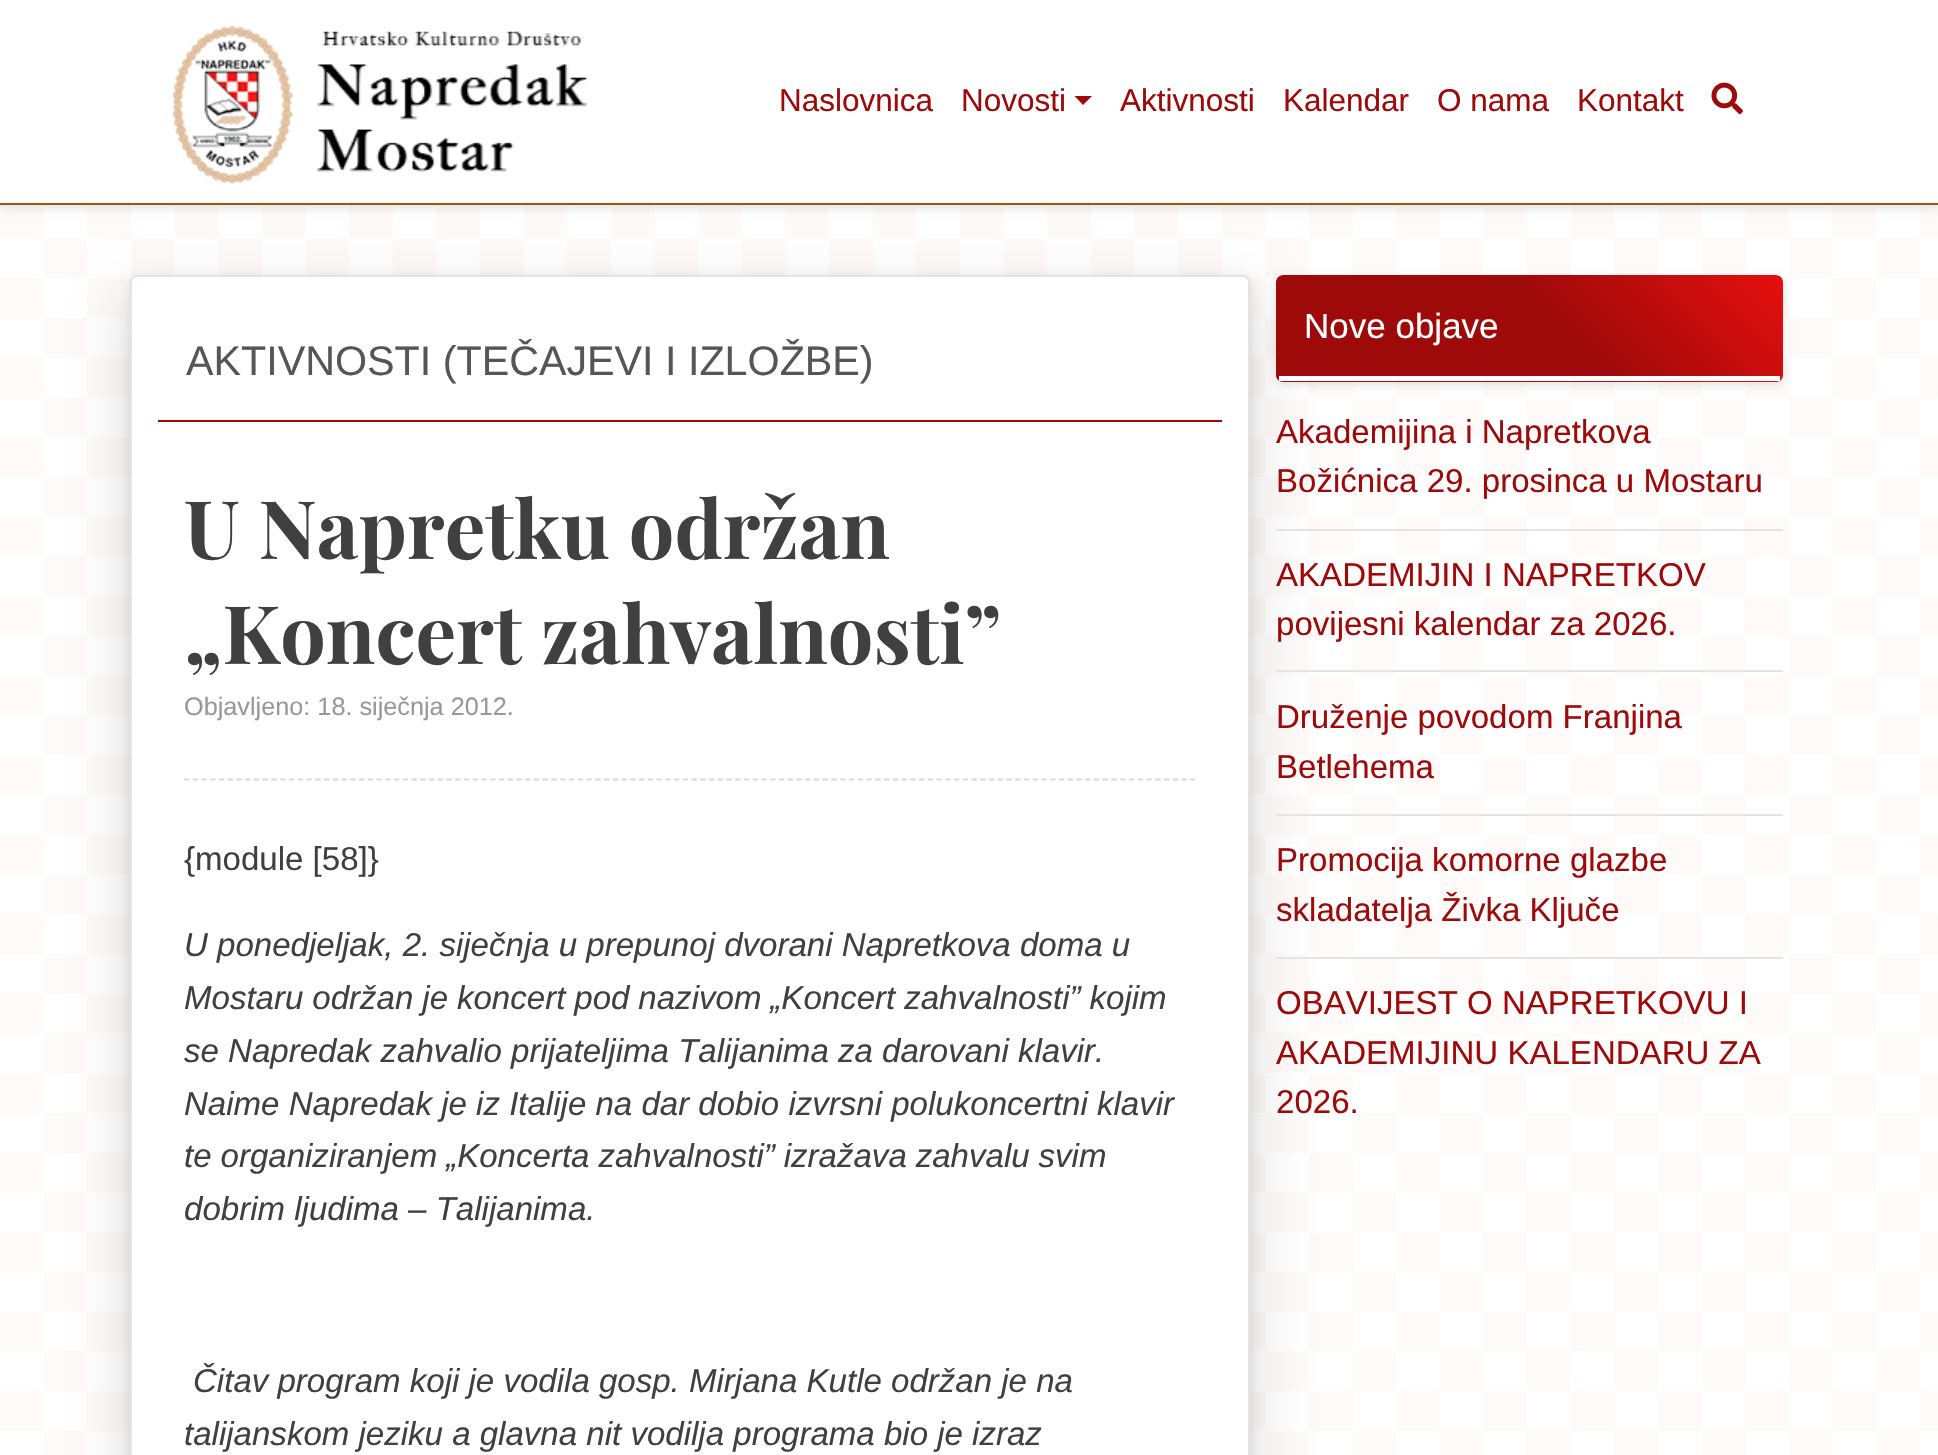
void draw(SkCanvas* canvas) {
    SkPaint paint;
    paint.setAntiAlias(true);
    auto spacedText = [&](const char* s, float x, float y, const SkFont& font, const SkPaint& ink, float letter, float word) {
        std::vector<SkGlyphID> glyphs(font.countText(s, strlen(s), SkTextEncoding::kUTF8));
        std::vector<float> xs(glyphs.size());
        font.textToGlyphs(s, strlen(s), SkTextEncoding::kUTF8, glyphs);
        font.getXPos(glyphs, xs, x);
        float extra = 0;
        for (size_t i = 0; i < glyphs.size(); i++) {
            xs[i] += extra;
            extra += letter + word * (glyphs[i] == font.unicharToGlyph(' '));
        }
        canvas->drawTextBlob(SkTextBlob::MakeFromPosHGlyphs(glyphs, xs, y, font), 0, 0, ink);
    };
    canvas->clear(0xFFFFFFFF);
    canvas->drawImageRect(SkImages::DeferredFromEncodedData(SkData::MakeFromFileName("img1.png")), SkRect::MakeXYWH(0, 205, 1938, 1250), SkSamplingOptions());
    paint.setColor(0x1A000000);
    paint.setMaskFilter(SkMaskFilter::MakeBlur(kNormal_SkBlurStyle, 5));
    canvas->drawRect(SkRect::MakeXYWH(0, 4, 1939, 204), paint);
    paint.setMaskFilter(nullptr);
    paint.setColor(0xFFFFFFFF);
    canvas->drawRect(SkRect::MakeXYWH(0, 0, 1938, 203), paint);
    paint.setColor(0xFF9E540A);
    canvas->drawRect(SkRect::MakeXYWH(0, 203, 1938, 2), paint);
    canvas->drawImageRect(SkImages::DeferredFromEncodedData(SkData::MakeFromFileName("img2.png")), SkRect::MakeXYWH(172, 25, 416, 159), SkSamplingOptions());
    SkFont font1(fontMgr->matchFamilyStyle("Liberation Sans", SkFontStyle::Normal()), 31.5f);
    font1.setSubpixel(true);
    paint.setColor(0xFF9E0A0A);
    canvas->drawString("Naslovnica", 779, 111, font1, paint);
    canvas->drawString("Novosti", 961, 111, font1, paint);
    canvas->drawPath(SkPathBuilder().moveTo(1074.5f, 96).lineTo(1092, 96).lineTo(1083, 105).close().detach(), paint);
    canvas->drawString("Aktivnosti", 1120, 111, font1, paint);
    canvas->drawString("Kalendar", 1283, 111, font1, paint);
    canvas->drawString("O nama", 1437, 111, font1, paint);
    canvas->drawString("Kontakt", 1577, 111, font1, paint);
    canvas->drawImageRect(SkImages::DeferredFromEncodedData(SkData::MakeFromFileName("img3.png")), SkRect::MakeXYWH(1711, 82, 32, 33), SkSamplingOptions());
    paint.setColor(0x26000000);
    paint.setMaskFilter(SkMaskFilter::MakeBlur(kNormal_SkBlurStyle, 28));
    canvas->drawRoundRect(SkRect::MakeXYWH(130, 296, 1120, 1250), 7, 7, paint);
    paint.setMaskFilter(nullptr);
    paint.setColor(0x1A000000);
    paint.setMaskFilter(SkMaskFilter::MakeBlur(kNormal_SkBlurStyle, 5));
    canvas->drawRoundRect(SkRect::MakeXYWH(130, 278, 1120, 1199), 7, 7, paint);
    paint.setMaskFilter(nullptr);
    paint.setColor(0xFFFFFFFF);
    canvas->drawRoundRect(SkRect::MakeXYWH(131, 276, 1118, 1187), 6, 6, paint);
    paint.setStyle(SkPaint::kStroke_Style);
    paint.setStrokeWidth(2);
    paint.setColor(0xFFE4E4E4);
    canvas->drawRoundRect(SkRect::MakeXYWH(131, 276, 1118, 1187), 6, 6, paint);
    paint.setStyle(SkPaint::kFill_Style);
    paint.setColor(0xFF9E0A0A);
    canvas->drawRect(SkRect::MakeXYWH(158, 420, 1064, 2), paint);
    SkFont font2(fontMgr->matchFamilyStyle("Liberation Sans", SkFontStyle::Normal()), 41.25f);
    font2.setSubpixel(true);
    paint.setColor(0xFF565657);
    canvas->drawString("AKTIVNOSTI (TEČAJEVI I IZLOŽBE)", 186, 375, font2, paint);
    SkFont font3(fontMgr->matchFamilyStyle("Playfair Display", SkFontStyle::Bold()), 80.75f);
    font3.setSubpixel(true);
    paint.setColor(0xFF404040);
    canvas->drawString("U Napretku održan", 184, 559, font3, paint);
    canvas->drawString("„Koncert zahvalnosti”", 184, 664, font3, paint);
    paint.setStyle(SkPaint::kStroke_Style);
    paint.setStrokeWidth(1.8f);
    paint.setColor(0xFFD9DADB);
    paint.setPathEffect(SkDashPathEffect::Make({{5.25f, 3.5f}}, 0));
    canvas->drawPath(SkPathBuilder().moveTo(184, 779.5f).lineTo(1195, 779.5f).detach(), paint);
    paint.setPathEffect(nullptr);
    SkFont font4(fontMgr->matchFamilyStyle("Liberation Sans", SkFontStyle::Normal()), 25.25f);
    font4.setSubpixel(true);
    paint.setStyle(SkPaint::kFill_Style);
    paint.setColor(0xFF989898);
    canvas->drawString("Objavljeno: 18. siječnja 2012.", 184, 715, font4, paint);
    SkFont font5(fontMgr->matchFamilyStyle("Liberation Sans", SkFontStyle::Normal()), 33.05f);
    font5.setSubpixel(true);
    paint.setColor(0xFF404040);
    canvas->drawString("{module [58]}", 184, 870, font5, paint);
    SkFont font6(fontMgr->matchFamilyStyle("Liberation Sans", SkFontStyle::Italic()), 33.05f);
    font6.setSubpixel(true);
    canvas->drawString("U ponedjeljak, 2. siječnja u prepunoj dvorani Napretkova doma u", 184, 956, font6, paint);
    spacedText("Mostaru održan je koncert pod nazivom „Koncert zahvalnosti” kojim", 184, 1009, font6, paint, 0, -0.25f);
    canvas->drawString("se Napredak zahvalio prijateljima Talijanima za darovani klavir.", 184, 1062, font6, paint);
    canvas->drawString("Naime Napredak je iz Italije na dar dobio izvrsni polukoncertni klavir", 184, 1115, font6, paint);
    spacedText("te organiziranjem „Koncerta zahvalnosti” izražava zahvalu svim", 184, 1167, font6, paint, 0, -0.25f);
    canvas->drawString("dobrim ljudima – Talijanima.", 184, 1220, font6, paint);
    canvas->drawString("Čitav program koji je vodila gosp. Mirjana Kutle održan je na", 193, 1392, font6, paint);
    canvas->drawString("talijanskom jeziku a glavna nit vodilja programa bio je izraz", 184, 1445, font6, paint);
    paint.setColor(0x1A000000);
    paint.setMaskFilter(SkMaskFilter::MakeBlur(kNormal_SkBlurStyle, 5));
    canvas->drawRoundRect(SkRect::MakeXYWH(1276, 278, 507, 107), 7, 7, paint);
    paint.setMaskFilter(nullptr);
    canvas->save();
    canvas->clipPath(SkPathBuilder().moveTo(1283, 275).lineTo(1776, 275).cubicTo(1780, 275, 1783, 278, 1783, 282).lineTo(1783, 375).cubicTo(1783, 379, 1780, 382, 1776, 382).lineTo(1283, 382).cubicTo(1279, 382, 1276, 379, 1276, 375).lineTo(1276, 282).cubicTo(1276, 278, 1279, 275, 1283, 275).close().detach(), true);
    {
        const SkColor colors[] = {0xFF9E0A0A, 0xFFE60F0F};
        const float stops[] = {0.55f, 1};
        const SkPoint ends[] = {{1377, 478}, {1682, 173}};
        paint.setShader(SkGradientShader::MakeLinear(ends, colors, stops, 2, SkTileMode::kClamp));
        paint.setAlpha(255);
    }
    canvas->drawPath(SkPathBuilder().moveTo(1283, 275).lineTo(1776, 275).cubicTo(1780, 275, 1783, 278, 1783, 282).lineTo(1783, 376).lineTo(1276, 376).lineTo(1276, 282).cubicTo(1276, 278, 1279, 275, 1283, 275).close().detach(), paint);
    {
        const SkColor colors[] = {0xFF9E0A0A, 0xFFE60F0F};
        const float stops[] = {0.55f, 1};
        const SkPoint ends[] = {{1377, 579}, {1682, 275}};
        paint.setShader(SkGradientShader::MakeLinear(ends, colors, stops, 2, SkTileMode::kClamp));
        paint.setAlpha(255);
    }
    canvas->drawRect(SkRect::MakeXYWH(1276, 376, 507, 6), paint);
    canvas->restore();
    paint.setShader(nullptr);
    paint.setColor(0xFFFFFFFF);
    canvas->drawRect(SkRect::MakeXYWH(1279, 376, 501, 5), paint);
    SkFont font7(fontMgr->matchFamilyStyle("Liberation Sans", SkFontStyle::Normal()), 35);
    font7.setSubpixel(true);
    canvas->drawString("Nove objave", 1304, 338, font7, paint);
    paint.setColor(0xFFE4E4E4);
    canvas->drawRect(SkRect::MakeXYWH(1276, 529, 507, 2), paint);
    paint.setColor(0xFF9E0A0A);
    canvas->drawString("Akademijina i Napretkova", 1276, 443, font5, paint);
    canvas->drawString("Božićnica 29. prosinca u Mostaru", 1276, 492, font5, paint);
    paint.setColor(0xFFE4E4E4);
    canvas->drawRect(SkRect::MakeXYWH(1276, 670, 507, 2), paint);
    paint.setColor(0xFF9E0A0A);
    canvas->drawString("AKADEMIJIN I NAPRETKOV", 1276, 586, font5, paint);
    canvas->drawString("povijesni kalendar za 2026.", 1276, 635, font5, paint);
    paint.setColor(0xFFE4E4E4);
    canvas->drawRect(SkRect::MakeXYWH(1276, 814, 507, 2), paint);
    paint.setColor(0xFF9E0A0A);
    canvas->drawString("Druženje povodom Franjina", 1276, 728, font5, paint);
    canvas->drawString("Betlehema", 1276, 778, font5, paint);
    paint.setColor(0xFFE4E4E4);
    canvas->drawRect(SkRect::MakeXYWH(1276, 957, 507, 2), paint);
    paint.setColor(0xFF9E0A0A);
    canvas->drawString("Promocija komorne glazbe", 1276, 871, font5, paint);
    canvas->drawString("skladatelja Živka Ključe", 1276, 921, font5, paint);
    canvas->drawString("OBAVIJEST O NAPRETKOVU I", 1276, 1014, font5, paint);
    canvas->drawString("AKADEMIJINU KALENDARU ZA", 1276, 1064, font5, paint);
    canvas->drawString("2026.", 1276, 1113, font5, paint);
}
